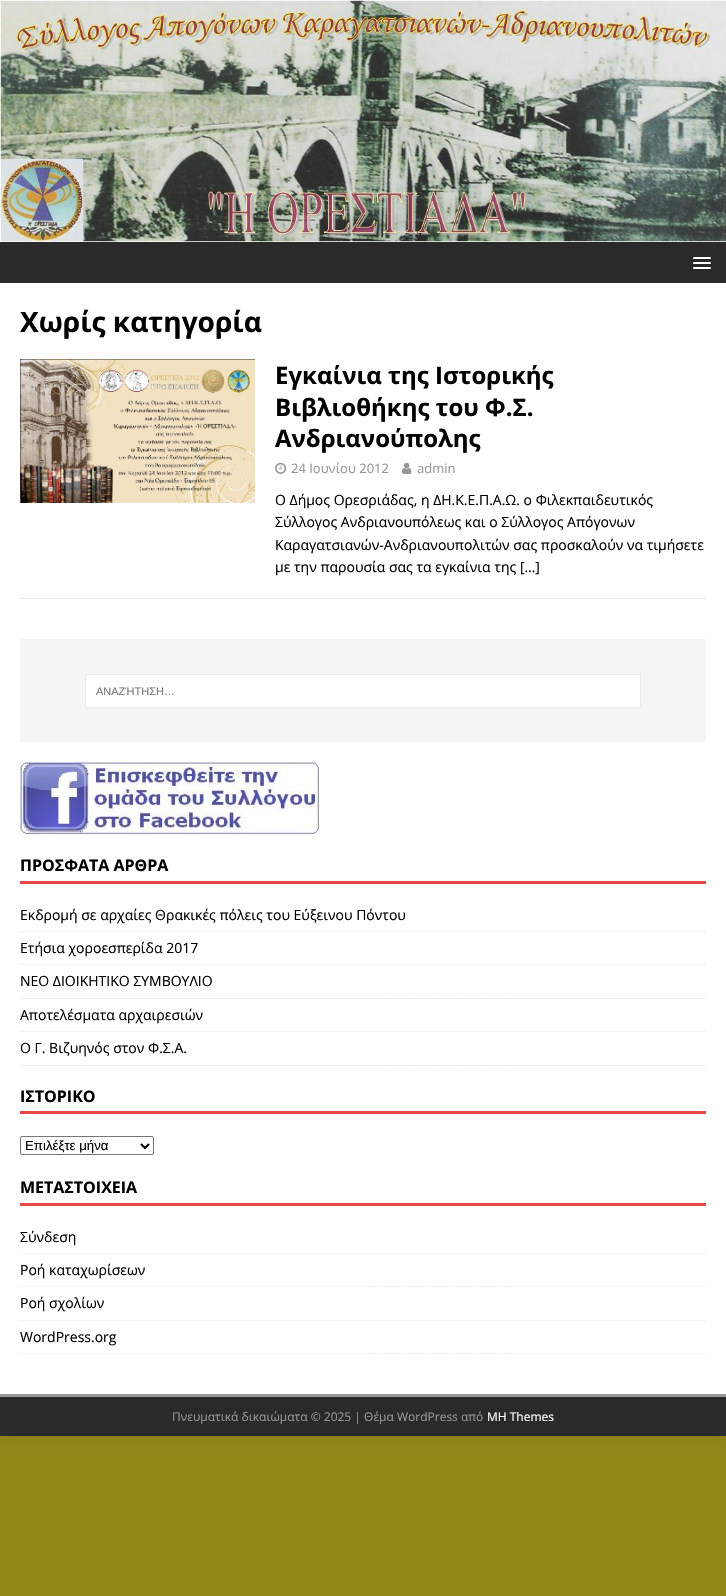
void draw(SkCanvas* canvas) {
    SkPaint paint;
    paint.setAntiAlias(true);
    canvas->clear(0xFF918717);
    paint.setColor(0x2B323232);
    paint.setMaskFilter(SkMaskFilter::MakeBlur(kNormal_SkBlurStyle, 5));
    canvas->drawRect(SkRect::MakeXYWH(0, 0, 726, 1436), paint);
    paint.setMaskFilter(nullptr);
    canvas->drawImageRect(SkImages::DeferredFromEncodedData(SkData::MakeFromFileName("img1.png")), SkRect::MakeXYWH(0, 0, 726, 242), SkSamplingOptions());
    paint.setColor(0xFF2A2A2A);
    canvas->drawRect(SkRect::MakeXYWH(0, 242, 726, 41), paint);
    paint.setColor(0xFFFFFFFF);
    canvas->drawRoundRect(SkRect::MakeXYWH(693, 257, 18, 2), 1, 1, paint);
    canvas->drawRoundRect(SkRect::MakeXYWH(693, 262, 18, 2), 1, 1, paint);
    canvas->drawRoundRect(SkRect::MakeXYWH(693, 267, 18, 2), 1, 1, paint);
    canvas->drawRect(SkRect::MakeXYWH(0, 283, 726, 1111), paint);
    SkFont font1(fontMgr->matchFamilyStyle("Open Sans", SkFontStyle::Bold()), 28);
    font1.setSubpixel(true);
    paint.setColor(0xFF000000);
    canvas->drawString("Χωρίς κατηγορία", 20, 332, font1, paint);
    paint.setColor(0xFFEBEBEB);
    canvas->drawRect(SkRect::MakeXYWH(20, 598, 686, 1), paint);
    canvas->drawImageRect(SkImages::DeferredFromEncodedData(SkData::MakeFromFileName("img2.png")), SkRect::MakeXYWH(20, 359, 235, 144), SkSamplingOptions());
    SkFont font2(fontMgr->matchFamilyStyle("Open Sans", SkFontStyle::Bold()), 24);
    font2.setSubpixel(true);
    paint.setColor(0xFF000000);
    canvas->drawString("Εγκαίνια της Ιστορικής", 275, 384, font2, paint);
    canvas->drawString("Βιβλιοθήκης του Φ.Σ.", 275, 416, font2, paint);
    canvas->drawString("Ανδριανούπολης", 275, 447, font2, paint);
    canvas->drawImageRect(SkImages::DeferredFromEncodedData(SkData::MakeFromFileName("img3.png")), SkRect::MakeXYWH(275, 462, 12, 12), SkSamplingOptions());
    SkFont font3(fontMgr->matchFamilyStyle("Open Sans", SkFontStyle::Normal()), 13);
    font3.setSubpixel(true);
    paint.setColor(0xFF979797);
    canvas->drawString("24 Ιουνίου 2012", 291, 473, font3, paint);
    canvas->drawImageRect(SkImages::DeferredFromEncodedData(SkData::MakeFromFileName("img4.png")), SkRect::MakeXYWH(402, 462, 10, 12), SkSamplingOptions());
    canvas->drawString("admin", 417, 473, font3, paint);
    SkFont font4(fontMgr->matchFamilyStyle("Open Sans", SkFontStyle::Normal()), 14);
    font4.setSubpixel(true);
    paint.setColor(0xFF000000);
    canvas->drawString("Ο Δήμος Ορεσριάδας, η ΔΗ.Κ.Ε.Π.Α.Ω. ο Φιλεκπαιδευτικός", 275, 505, font4, paint);
    canvas->drawString("Σύλλογος Ανδριανουπόλεως και ο Σύλλογος Απόγονων", 275, 527, font4, paint);
    canvas->drawString("Καραγατσιανών-Ανδριανουπολιτών σας προσκαλούν να τιμήσετε", 275, 550, font4, paint);
    canvas->drawString("με την παρουσία σας τα εγκαίνια της […]", 275, 572, font4, paint);
    paint.setColor(0xFFF5F5F5);
    canvas->drawRect(SkRect::MakeXYWH(20, 639, 686, 103), paint);
    paint.setColor(0xFFFFFFFF);
    canvas->drawRect(SkRect::MakeXYWH(85.5f, 674.5f, 555, 33), paint);
    paint.setStyle(SkPaint::kStroke_Style);
    paint.setStrokeWidth(1);
    paint.setColor(0xFFEBEBEB);
    canvas->drawRect(SkRect::MakeXYWH(85.5f, 674.5f, 555, 33), paint);
    SkFont font5(fontMgr->matchFamilyStyle("Liberation Sans", SkFontStyle::Normal()), 11);
    font5.setSubpixel(true);
    paint.setStyle(SkPaint::kFill_Style);
    paint.setColor(0xFF757575);
    canvas->drawString("ΑΝΑΖΉΤΗΣΗ…", 96, 695, font5, paint);
    canvas->drawImageRect(SkImages::DeferredFromEncodedData(SkData::MakeFromFileName("img5.png")), SkRect::MakeXYWH(20, 762, 300, 73), SkSamplingOptions());
    paint.setColor(0xFFE64946);
    canvas->drawRect(SkRect::MakeXYWH(20, 881, 686, 3), paint);
    SkFont font6(fontMgr->matchFamilyStyle("Open Sans", SkFontStyle::Bold()), 16);
    font6.setSubpixel(true);
    paint.setColor(0xFF000000);
    canvas->drawString("ΠΡΟΣΦΑΤΑ ΑΡΘΡΑ", 20, 871, font6, paint);
    paint.setStyle(SkPaint::kStroke_Style);
    paint.setColor(0xFFE5E5E5);
    paint.setPathEffect(SkDashPathEffect::Make({{1, 1}}, 0));
    canvas->drawPath(SkPathBuilder().moveTo(20, 931.5f).lineTo(706, 931.5f).detach(), paint);
    paint.setPathEffect(nullptr);
    paint.setStyle(SkPaint::kFill_Style);
    paint.setColor(0xFF000000);
    canvas->drawString("Εκδρομή σε αρχαίες Θρακικές πόλεις του Εύξεινου Πόντου", 20, 920, font4, paint);
    paint.setStyle(SkPaint::kStroke_Style);
    paint.setColor(0xFFE5E5E5);
    paint.setPathEffect(SkDashPathEffect::Make({{1, 1}}, 0));
    canvas->drawPath(SkPathBuilder().moveTo(20, 964.5f).lineTo(706, 964.5f).detach(), paint);
    paint.setPathEffect(nullptr);
    paint.setStyle(SkPaint::kFill_Style);
    paint.setColor(0xFF000000);
    canvas->drawString("Ετήσια χοροεσπερίδα 2017", 20, 953, font4, paint);
    paint.setStyle(SkPaint::kStroke_Style);
    paint.setColor(0xFFE5E5E5);
    paint.setPathEffect(SkDashPathEffect::Make({{1, 1}}, 0));
    canvas->drawPath(SkPathBuilder().moveTo(20, 998.5f).lineTo(706, 998.5f).detach(), paint);
    paint.setPathEffect(nullptr);
    paint.setStyle(SkPaint::kFill_Style);
    paint.setColor(0xFF000000);
    canvas->drawString("ΝΕΟ ΔΙΟΙΚΗΤΙΚΟ ΣΥΜΒΟΥΛΙΟ", 20, 986, font4, paint);
    paint.setStyle(SkPaint::kStroke_Style);
    paint.setColor(0xFFE5E5E5);
    paint.setPathEffect(SkDashPathEffect::Make({{1, 1}}, 0));
    canvas->drawPath(SkPathBuilder().moveTo(20, 1031.5f).lineTo(706, 1031.5f).detach(), paint);
    paint.setPathEffect(nullptr);
    paint.setStyle(SkPaint::kFill_Style);
    paint.setColor(0xFF000000);
    canvas->drawString("Αποτελέσματα αρχαιρεσιών", 20, 1020, font4, paint);
    paint.setStyle(SkPaint::kStroke_Style);
    paint.setColor(0xFFE5E5E5);
    paint.setPathEffect(SkDashPathEffect::Make({{1, 1}}, 0));
    canvas->drawPath(SkPathBuilder().moveTo(20, 1065.5f).lineTo(706, 1065.5f).detach(), paint);
    paint.setPathEffect(nullptr);
    paint.setStyle(SkPaint::kFill_Style);
    paint.setColor(0xFF000000);
    canvas->drawString("Ο Γ. Βιζυηνός στον Φ.Σ.Α.", 20, 1053, font4, paint);
    paint.setColor(0xFFE64946);
    canvas->drawRect(SkRect::MakeXYWH(20, 1111, 686, 3), paint);
    paint.setColor(0xFF000000);
    canvas->drawString("ΙΣΤΟΡΙΚΟ", 20, 1102, font6, paint);
    paint.setStyle(SkPaint::kStroke_Style);
    paint.setColor(0xFF767676);
    canvas->drawRoundRect(SkRect::MakeXYWH(20.5f, 1136.5f, 133, 18), 1.5f, 1.5f, paint);
    paint.setStrokeWidth(2);
    paint.setColor(0xFF000000);
    canvas->drawPath(SkPathBuilder().moveTo(141, 1144).lineTo(145, 1148).lineTo(149, 1144).detach(), paint);
    SkFont font7(fontMgr->matchFamilyStyle("Liberation Sans", SkFontStyle::Normal()), 13.25f);
    font7.setSubpixel(true);
    paint.setStyle(SkPaint::kFill_Style);
    canvas->drawString("Επιλέξτε μήνα", 25, 1150, font7, paint);
    paint.setColor(0xFFE64946);
    canvas->drawRect(SkRect::MakeXYWH(20, 1203, 686, 3), paint);
    paint.setColor(0xFF000000);
    canvas->drawString("ΜΕΤΑΣΤΟΙΧΕΙΑ", 20, 1193, font6, paint);
    paint.setStyle(SkPaint::kStroke_Style);
    paint.setStrokeWidth(1);
    paint.setColor(0xFFEBEBEB);
    paint.setPathEffect(SkDashPathEffect::Make({{1, 1}}, 0));
    canvas->drawPath(SkPathBuilder().moveTo(20, 1253.5f).lineTo(706, 1253.5f).detach(), paint);
    paint.setPathEffect(nullptr);
    paint.setStyle(SkPaint::kFill_Style);
    paint.setColor(0xFF000000);
    canvas->drawString("Σύνδεση", 20, 1242, font4, paint);
    paint.setStyle(SkPaint::kStroke_Style);
    paint.setColor(0xFFEBEBEB);
    paint.setPathEffect(SkDashPathEffect::Make({{1, 1}}, 0));
    canvas->drawPath(SkPathBuilder().moveTo(20, 1286.5f).lineTo(706, 1286.5f).detach(), paint);
    paint.setPathEffect(nullptr);
    paint.setStyle(SkPaint::kFill_Style);
    paint.setColor(0xFF000000);
    canvas->drawString("Ροή καταχωρίσεων", 20, 1275, font4, paint);
    paint.setStyle(SkPaint::kStroke_Style);
    paint.setColor(0xFFEBEBEB);
    paint.setPathEffect(SkDashPathEffect::Make({{1, 1}}, 0));
    canvas->drawPath(SkPathBuilder().moveTo(20, 1320.5f).lineTo(706, 1320.5f).detach(), paint);
    paint.setPathEffect(nullptr);
    paint.setStyle(SkPaint::kFill_Style);
    paint.setColor(0xFF000000);
    canvas->drawString("Ροή σχολίων", 20, 1308, font4, paint);
    paint.setStyle(SkPaint::kStroke_Style);
    paint.setColor(0xFFEBEBEB);
    paint.setPathEffect(SkDashPathEffect::Make({{1, 1}}, 0));
    canvas->drawPath(SkPathBuilder().moveTo(20, 1353.5f).lineTo(706, 1353.5f).detach(), paint);
    paint.setPathEffect(nullptr);
    paint.setStyle(SkPaint::kFill_Style);
    paint.setColor(0xFF000000);
    canvas->drawString("WordPress.org", 20, 1342, font4, paint);
    paint.setColor(0xFF2A2A2A);
    canvas->drawRect(SkRect::MakeXYWH(0, 1397, 726, 39), paint);
    paint.setColor(0xFF999999);
    canvas->drawRect(SkRect::MakeXYWH(0, 1394, 726, 3), paint);
    SkFont font8(fontMgr->matchFamilyStyle("Open Sans", SkFontStyle::Normal()), 12);
    font8.setSubpixel(true);
    paint.setColor(0xFF979797);
    canvas->drawString("Πνευματικά δικαιώματα © 2025 | Θέμα WordPress από", 172, 1421, font8, paint);
    paint.setColor(0xFFFFFFFF);
    canvas->drawString("MH Themes", 487, 1421, font8, paint);
}
